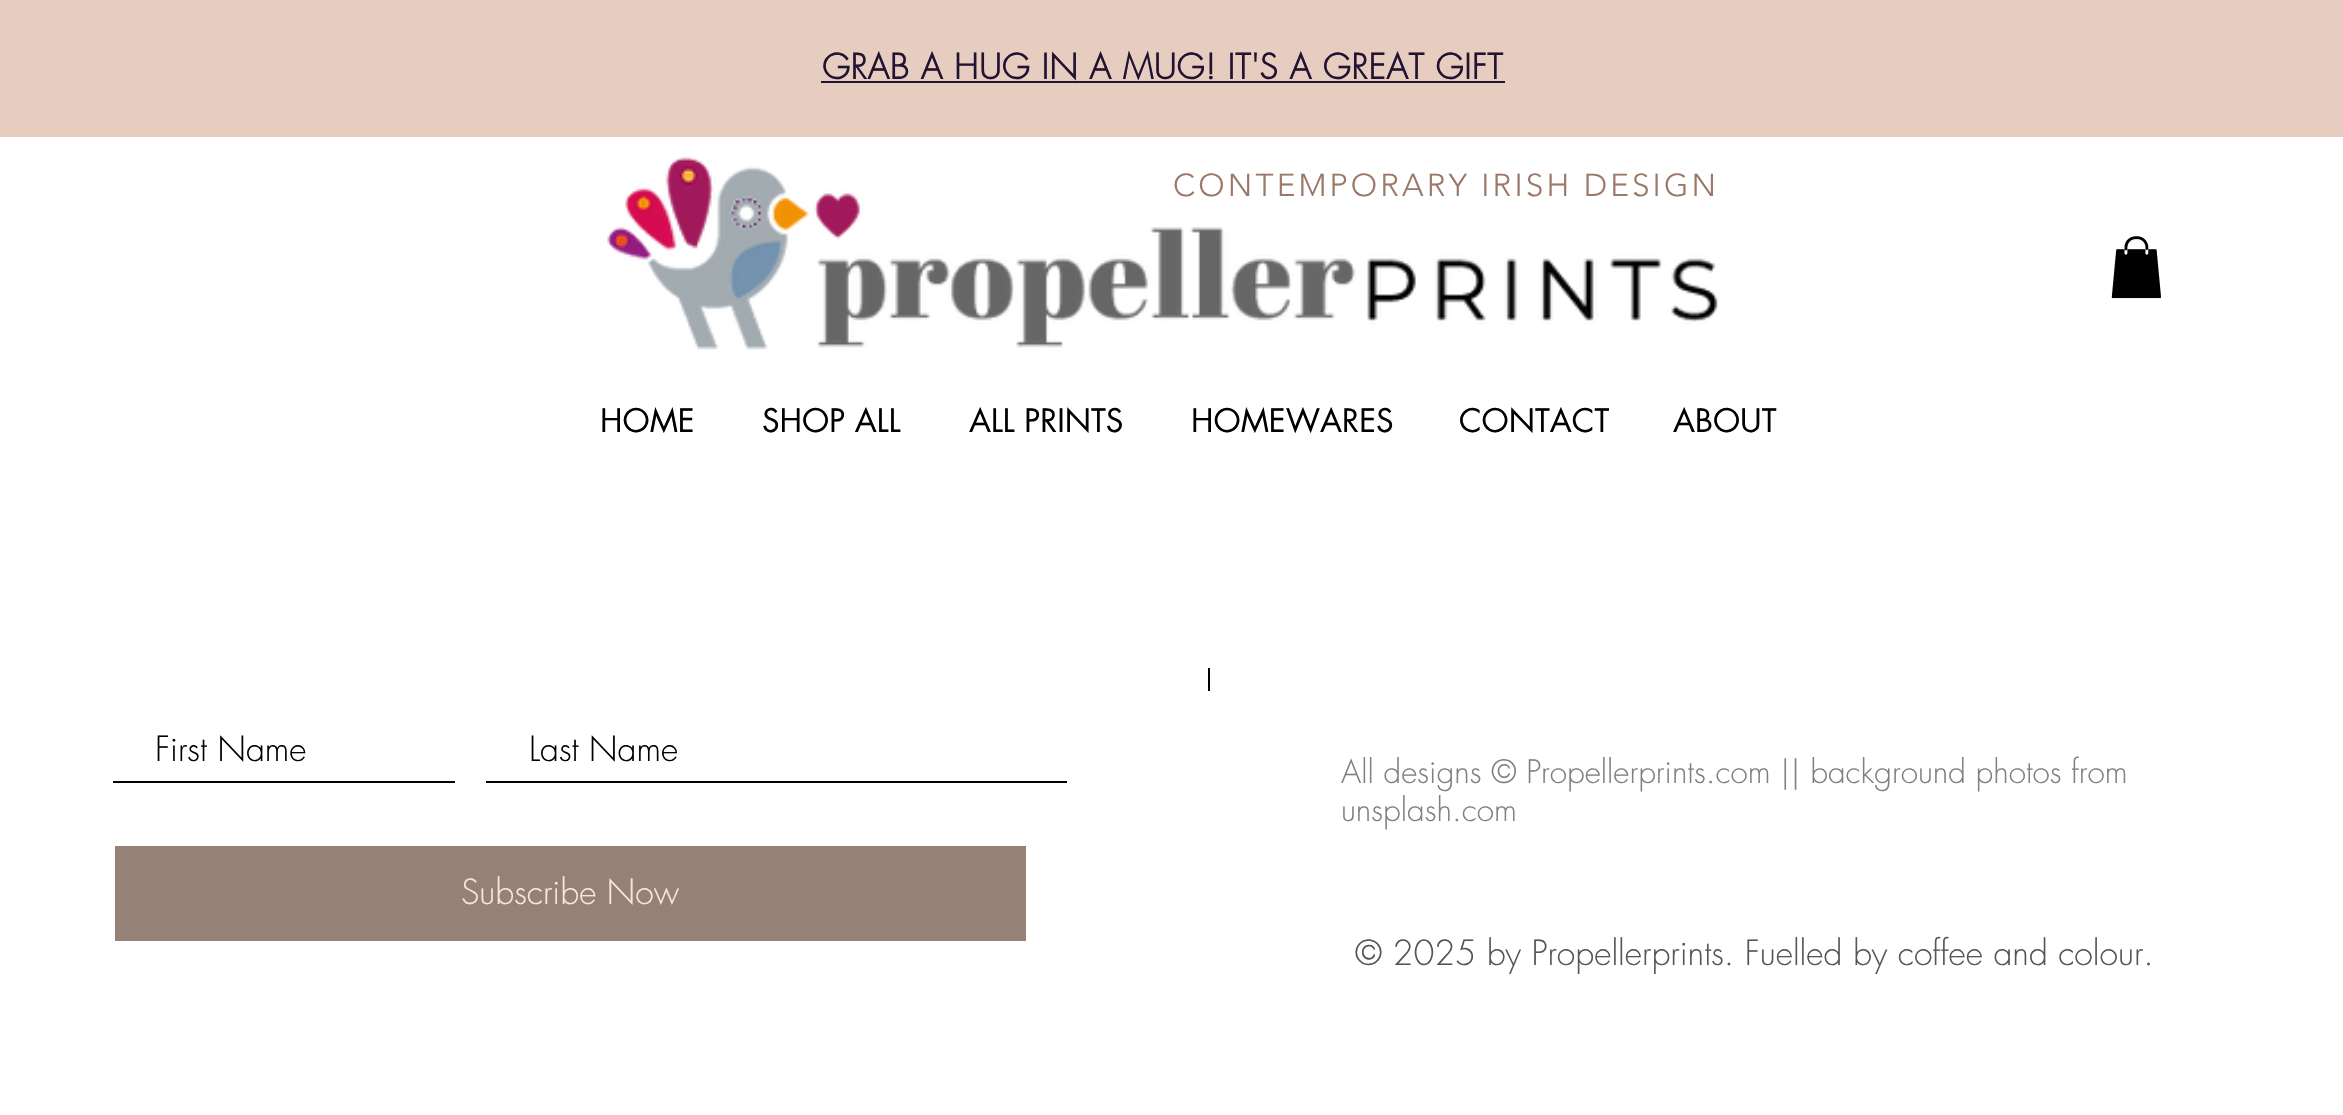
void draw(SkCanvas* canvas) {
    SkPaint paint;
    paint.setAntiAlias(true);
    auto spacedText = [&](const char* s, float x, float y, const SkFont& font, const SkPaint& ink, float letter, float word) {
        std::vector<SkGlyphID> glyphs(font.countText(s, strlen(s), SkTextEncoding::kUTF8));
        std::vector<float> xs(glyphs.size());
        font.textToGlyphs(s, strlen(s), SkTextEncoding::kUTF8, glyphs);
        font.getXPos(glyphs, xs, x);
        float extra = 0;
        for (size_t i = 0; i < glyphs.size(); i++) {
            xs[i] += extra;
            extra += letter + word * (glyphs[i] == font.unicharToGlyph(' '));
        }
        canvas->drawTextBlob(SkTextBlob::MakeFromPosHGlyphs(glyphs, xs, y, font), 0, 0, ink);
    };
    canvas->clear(0xFFFFFFFF);
    paint.setColor(0xFFE7CDC0);
    canvas->drawRect(SkRect::MakeXYWH(0, 0, 2343, 137), paint);
    SkFont font1(fontMgr->matchFamilyStyle("futura", SkFontStyle::Bold()), 33.75f);
    font1.setSubpixel(true);
    paint.setColor(0xFF221333);
    spacedText("GRAB A HUG IN A MUG! IT'S A GREAT GIFT", 822, 79, font1, paint, 0.65f, 0);
    canvas->drawRect(SkRect::MakeXYWH(821, 81, 684, 2), paint);
    canvas->drawImageRect(SkImages::DeferredFromEncodedData(SkData::MakeFromFileName("img1.png")), SkRect::MakeXYWH(607, 157, 1111, 193), SkSamplingOptions());
    SkFont font2(fontMgr->matchFamilyStyle("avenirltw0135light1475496", SkFontStyle(300, SkFontStyle::kNormal_Width, SkFontStyle::kUpright_Slant)), 31.5f);
    font2.setSubpixel(true);
    paint.setColor(0xFF9B7867);
    spacedText("CONTEMPORARY IRISH DESIGN", 1173, 196, font2, paint, 3.15f, 0);
    SkFont font3(fontMgr->matchFamilyStyle("futura", SkFontStyle::Normal()), 31.5f);
    font3.setSubpixel(true);
    paint.setColor(0xFF000000);
    canvas->drawString("HOME", 600, 432, font3, paint);
    canvas->drawString("SHOP ALL", 762, 432, font3, paint);
    canvas->drawString("ALL PRINTS", 969, 432, font3, paint);
    canvas->drawString("HOMEWARES", 1191, 432, font3, paint);
    canvas->drawString("CONTACT", 1459, 432, font3, paint);
    canvas->drawString("ABOUT", 1673, 432, font3, paint);
    canvas->drawImageRect(SkImages::DeferredFromEncodedData(SkData::MakeFromFileName("img2.png")), SkRect::MakeXYWH(2111, 236, 50, 63), SkSamplingOptions());
    canvas->drawRect(SkRect::MakeXYWH(1208, 668, 2, 23), paint);
    canvas->drawRect(SkRect::MakeXYWH(113, 781, 342, 2), paint);
    SkFont font4(fontMgr->matchFamilyStyle("futura", SkFontStyle(300, SkFontStyle::kNormal_Width, SkFontStyle::kUpright_Slant)), 33.75f);
    font4.setSubpixel(true);
    canvas->drawString("First Name", 155, 761, font4, paint);
    canvas->drawRect(SkRect::MakeXYWH(486, 781, 581, 2), paint);
    canvas->drawString("Last Name", 529, 761, font4, paint);
    paint.setColor(0xFF958176);
    canvas->drawRect(SkRect::MakeXYWH(115, 846, 911, 95), paint);
    paint.setColor(0xFFF5E7DF);
    canvas->drawString("Subscribe Now", 461, 904, font4, paint);
    SkFont font5(fontMgr->matchFamilyStyle("futura", SkFontStyle(300, SkFontStyle::kNormal_Width, SkFontStyle::kUpright_Slant)), 31.5f);
    font5.setSubpixel(true);
    paint.setColor(0xFF808080);
    canvas->drawString("All designs © Propellerprints.com || background photos from", 1341, 783, font5, paint);
    canvas->drawString("unsplash.com", 1341, 821, font5, paint);
    paint.setColor(0xFF555555);
    canvas->drawString("© 2025 by Propellerprints. Fuelled by coffee and colour.", 1355, 965, font4, paint);
}
